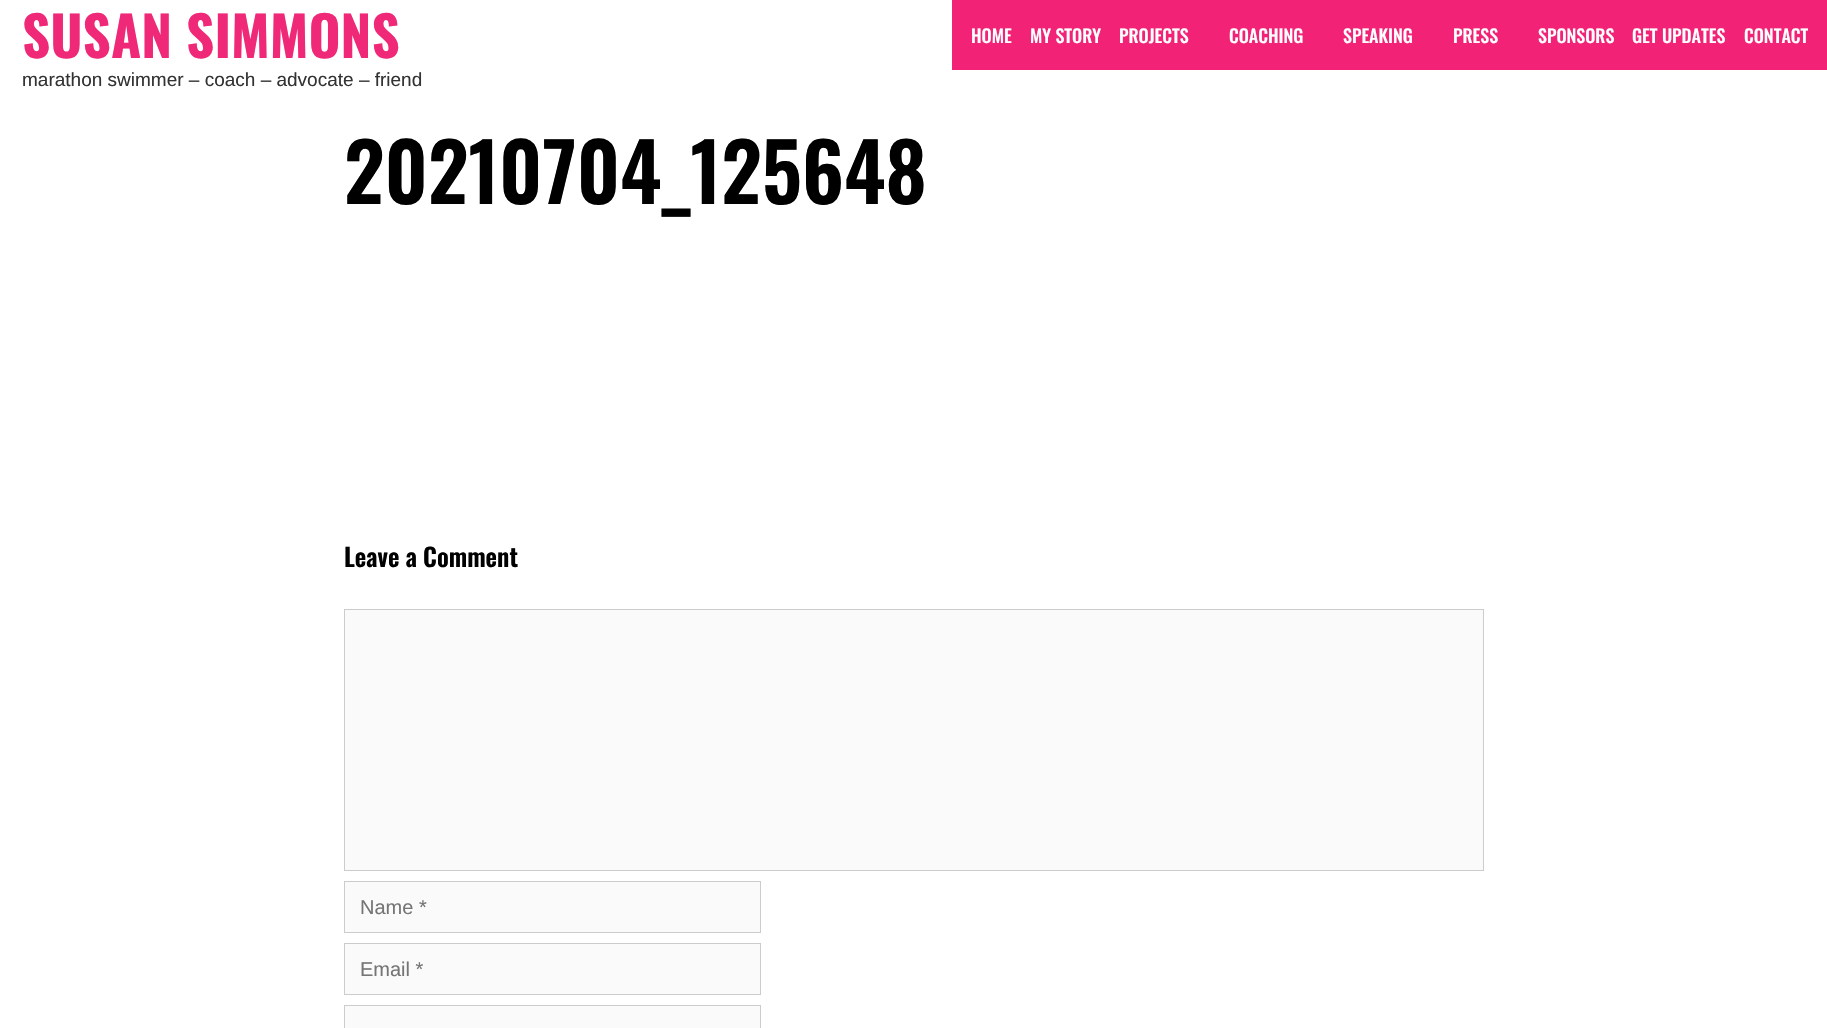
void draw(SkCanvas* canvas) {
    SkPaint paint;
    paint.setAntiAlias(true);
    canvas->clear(0xFFFFFFFF);
    SkFont font1(fontMgr->matchFamilyStyle("Oswald", SkFontStyle::Bold()), 55);
    font1.setSubpixel(true);
    paint.setColor(0xFFEF2978);
    canvas->drawString("SUSAN SIMMONS", 22, 58, font1, paint);
    SkFont font2(fontMgr->matchFamilyStyle("Liberation Sans", SkFontStyle::Normal()), 19);
    font2.setSubpixel(true);
    paint.setColor(0xFF333333);
    canvas->drawString("marathon swimmer – coach – advocate – friend", 22, 86, font2, paint);
    paint.setColor(0xFFF22277);
    canvas->drawRect(SkRect::MakeXYWH(952, 0, 875, 70), paint);
    SkFont font3(fontMgr->matchFamilyStyle("Oswald", SkFontStyle(500, SkFontStyle::kNormal_Width, SkFontStyle::kUpright_Slant)), 18);
    font3.setSubpixel(true);
    paint.setColor(0xFFFFFFFF);
    canvas->drawString("HOME", 971, 43, font3, paint);
    canvas->drawString("MY STORY", 1030, 43, font3, paint);
    canvas->drawString("PROJECTS", 1119, 43, font3, paint);
    canvas->drawString("COACHING", 1229, 43, font3, paint);
    canvas->drawString("SPEAKING", 1343, 43, font3, paint);
    canvas->drawString("PRESS", 1453, 43, font3, paint);
    canvas->drawString("SPONSORS", 1538, 43, font3, paint);
    canvas->drawString("GET UPDATES", 1632, 43, font3, paint);
    canvas->drawString("CONTACT", 1744, 43, font3, paint);
    SkFont font4(fontMgr->matchFamilyStyle("Oswald", SkFontStyle(600, SkFontStyle::kNormal_Width, SkFontStyle::kUpright_Slant)), 80);
    font4.setSubpixel(true);
    paint.setColor(0xFF000000);
    canvas->drawString("20210704_125648", 344, 204, font4, paint);
    SkFont font5(fontMgr->matchFamilyStyle("Oswald", SkFontStyle(600, SkFontStyle::kNormal_Width, SkFontStyle::kUpright_Slant)), 25);
    font5.setSubpixel(true);
    canvas->drawString("Leave a Comment", 344, 567, font5, paint);
    paint.setColor(0xFFFAFAFA);
    canvas->drawRect(SkRect::MakeXYWH(344.5f, 609.5f, 1139, 261), paint);
    paint.setStyle(SkPaint::kStroke_Style);
    paint.setStrokeWidth(1);
    paint.setColor(0xFFCCCCCC);
    canvas->drawRect(SkRect::MakeXYWH(344.5f, 609.5f, 1139, 261), paint);
    paint.setStyle(SkPaint::kFill_Style);
    paint.setColor(0xFFFAFAFA);
    canvas->drawRect(SkRect::MakeXYWH(344.5f, 881.5f, 416, 51), paint);
    paint.setStyle(SkPaint::kStroke_Style);
    paint.setColor(0xFFCCCCCC);
    canvas->drawRect(SkRect::MakeXYWH(344.5f, 881.5f, 416, 51), paint);
    SkFont font6(fontMgr->matchFamilyStyle("Liberation Sans", SkFontStyle::Normal()), 20);
    font6.setSubpixel(true);
    paint.setStyle(SkPaint::kFill_Style);
    paint.setColor(0xFF757575);
    canvas->drawString("Name *", 360, 914, font6, paint);
    paint.setColor(0xFFFAFAFA);
    canvas->drawRect(SkRect::MakeXYWH(344.5f, 943.5f, 416, 51), paint);
    paint.setStyle(SkPaint::kStroke_Style);
    paint.setColor(0xFFCCCCCC);
    canvas->drawRect(SkRect::MakeXYWH(344.5f, 943.5f, 416, 51), paint);
    paint.setStyle(SkPaint::kFill_Style);
    paint.setColor(0xFF757575);
    canvas->drawString("Email *", 360, 976, font6, paint);
    paint.setColor(0xFFFAFAFA);
    canvas->drawRect(SkRect::MakeXYWH(344.5f, 1005.5f, 416, 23), paint);
    paint.setStyle(SkPaint::kStroke_Style);
    paint.setColor(0xFFCCCCCC);
    canvas->drawRect(SkRect::MakeXYWH(344.5f, 1005.5f, 416, 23), paint);
}
